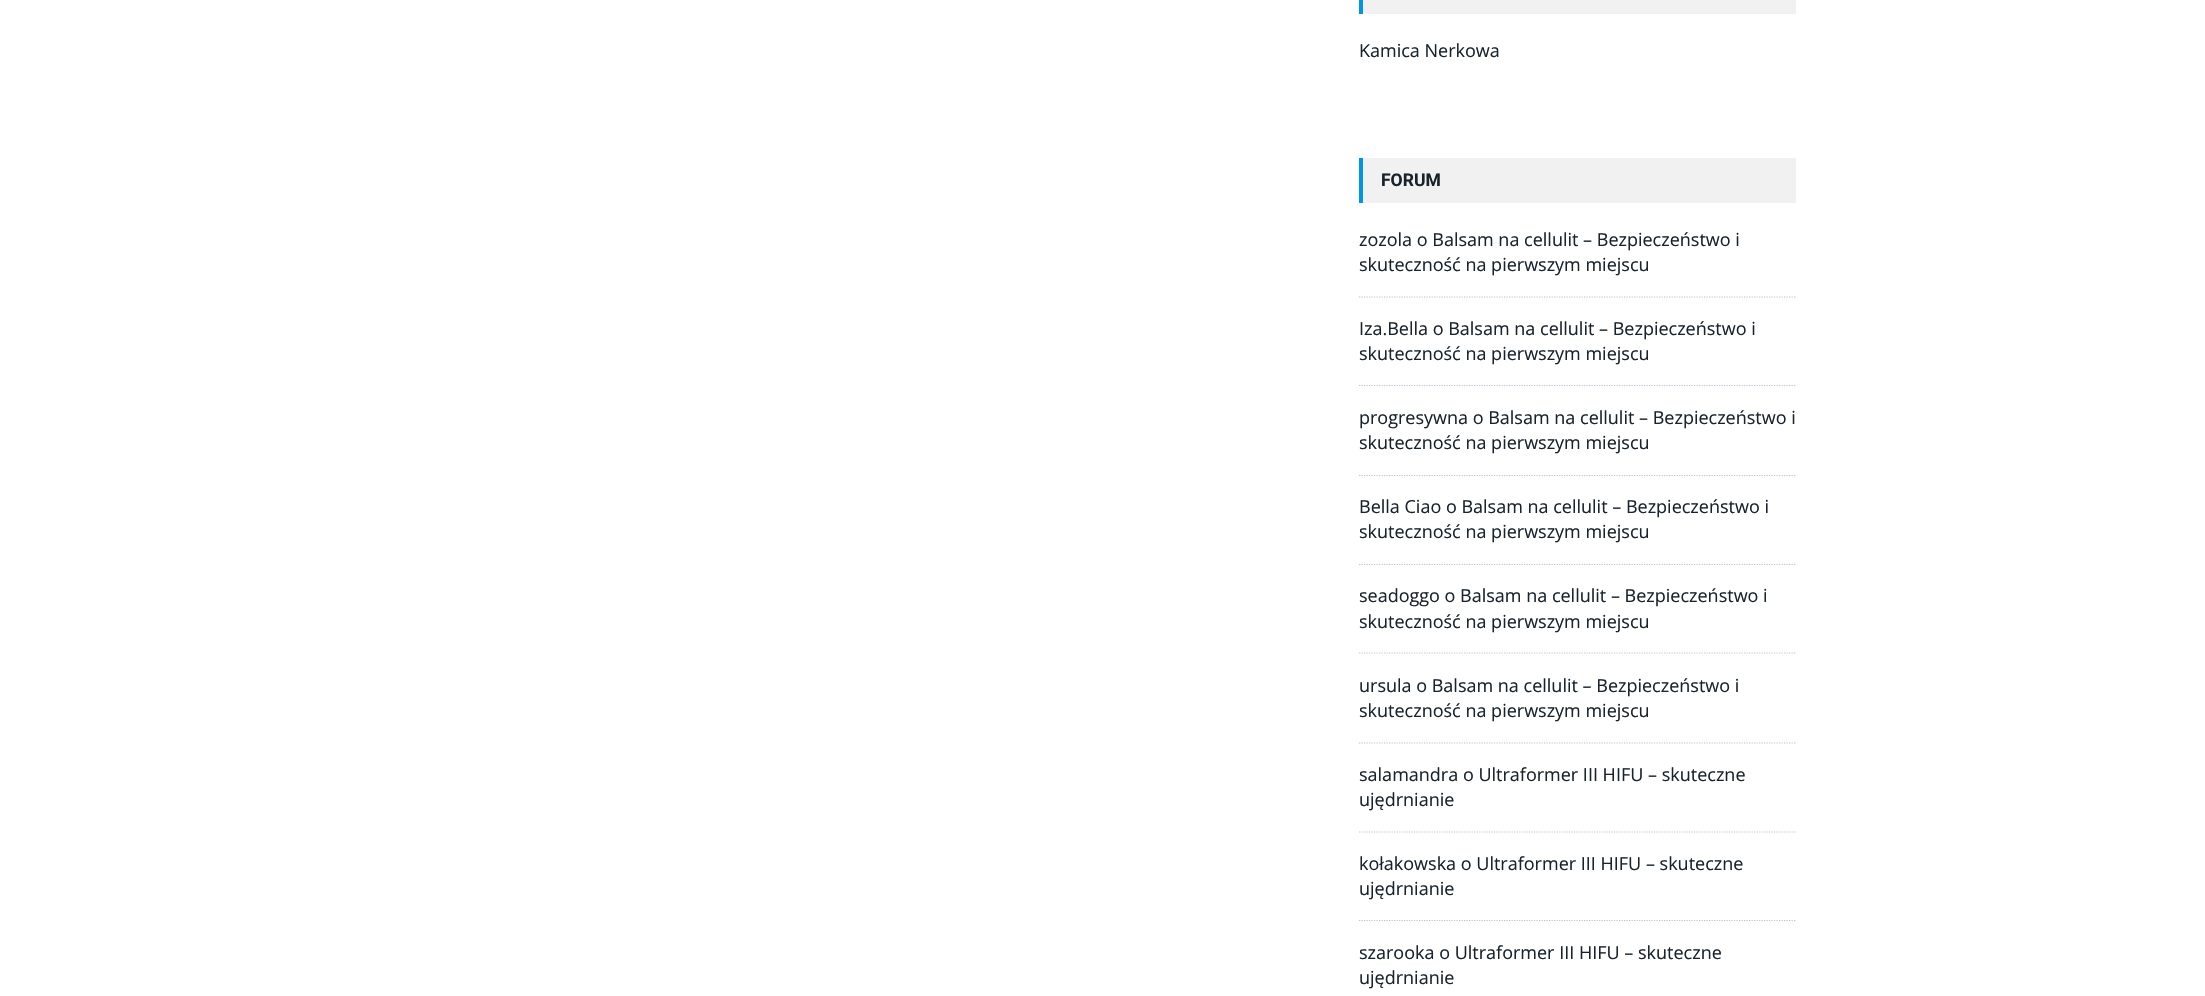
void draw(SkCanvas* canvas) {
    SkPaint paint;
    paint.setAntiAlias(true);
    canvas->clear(0xFFFFFFFF);
    paint.setColor(0xFFF1F1F1);
    canvas->drawRect(SkRect::MakeXYWH(1363, 0, 433, 14), paint);
    paint.setColor(0xFF0096E8);
    canvas->drawRect(SkRect::MakeXYWH(1359, 0, 4, 14), paint);
    SkFont font1(fontMgr->matchFamilyStyle("Open Sans", SkFontStyle::Normal()), 18);
    font1.setSubpixel(true);
    paint.setColor(0xFF19232D);
    canvas->drawString("Kamica Nerkowa", 1359, 57, font1, paint);
    paint.setColor(0xFFF1F1F1);
    canvas->drawRect(SkRect::MakeXYWH(1363, 158, 433, 45), paint);
    paint.setColor(0xFF0096E8);
    canvas->drawRect(SkRect::MakeXYWH(1359, 158, 4, 45), paint);
    SkFont font2(fontMgr->matchFamilyStyle("Roboto", SkFontStyle::Bold()), 17.5f);
    font2.setSubpixel(true);
    paint.setColor(0xFF19232D);
    canvas->drawString("FORUM", 1381, 186, font2, paint);
    paint.setStyle(SkPaint::kStroke_Style);
    paint.setStrokeWidth(1.2f);
    paint.setColor(0xFFB7C6D3);
    paint.setPathEffect(SkDashPathEffect::Make({{1.25f, 1.25f}}, 0));
    canvas->drawPath(SkPathBuilder().moveTo(1359, 297).lineTo(1796, 297).detach(), paint);
    paint.setPathEffect(nullptr);
    paint.setStyle(SkPaint::kFill_Style);
    paint.setColor(0xFF19232D);
    canvas->drawString("zozola o Balsam na cellulit – Bezpieczeństwo i", 1359, 246, font1, paint);
    canvas->drawString("skuteczność na pierwszym miejscu", 1359, 271, font1, paint);
    paint.setStyle(SkPaint::kStroke_Style);
    paint.setColor(0xFFB7C6D3);
    paint.setPathEffect(SkDashPathEffect::Make({{1.25f, 1.25f}}, 0));
    canvas->drawPath(SkPathBuilder().moveTo(1359, 385.5f).lineTo(1796, 385.5f).detach(), paint);
    paint.setPathEffect(nullptr);
    paint.setStyle(SkPaint::kFill_Style);
    paint.setColor(0xFF19232D);
    canvas->drawString("Iza.Bella o Balsam na cellulit – Bezpieczeństwo i", 1359, 335, font1, paint);
    canvas->drawString("skuteczność na pierwszym miejscu", 1359, 360, font1, paint);
    paint.setStyle(SkPaint::kStroke_Style);
    paint.setColor(0xFFB7C6D3);
    paint.setPathEffect(SkDashPathEffect::Make({{1.25f, 1.25f}}, 0));
    canvas->drawPath(SkPathBuilder().moveTo(1359, 475.5f).lineTo(1796, 475.5f).detach(), paint);
    paint.setPathEffect(nullptr);
    paint.setStyle(SkPaint::kFill_Style);
    paint.setColor(0xFF19232D);
    canvas->drawString("progresywna o Balsam na cellulit – Bezpieczeństwo i", 1359, 424, font1, paint);
    canvas->drawString("skuteczność na pierwszym miejscu", 1359, 449, font1, paint);
    paint.setStyle(SkPaint::kStroke_Style);
    paint.setColor(0xFFB7C6D3);
    paint.setPathEffect(SkDashPathEffect::Make({{1.25f, 1.25f}}, 0));
    canvas->drawPath(SkPathBuilder().moveTo(1359, 564.5f).lineTo(1796, 564.5f).detach(), paint);
    paint.setPathEffect(nullptr);
    paint.setStyle(SkPaint::kFill_Style);
    paint.setColor(0xFF19232D);
    canvas->drawString("Bella Ciao o Balsam na cellulit – Bezpieczeństwo i", 1359, 513, font1, paint);
    canvas->drawString("skuteczność na pierwszym miejscu", 1359, 538, font1, paint);
    paint.setStyle(SkPaint::kStroke_Style);
    paint.setColor(0xFFB7C6D3);
    paint.setPathEffect(SkDashPathEffect::Make({{1.25f, 1.25f}}, 0));
    canvas->drawPath(SkPathBuilder().moveTo(1359, 653).lineTo(1796, 653).detach(), paint);
    paint.setPathEffect(nullptr);
    paint.setStyle(SkPaint::kFill_Style);
    paint.setColor(0xFF19232D);
    canvas->drawString("seadoggo o Balsam na cellulit – Bezpieczeństwo i", 1359, 602, font1, paint);
    canvas->drawString("skuteczność na pierwszym miejscu", 1359, 628, font1, paint);
    paint.setStyle(SkPaint::kStroke_Style);
    paint.setColor(0xFFB7C6D3);
    paint.setPathEffect(SkDashPathEffect::Make({{1.25f, 1.25f}}, 0));
    canvas->drawPath(SkPathBuilder().moveTo(1359, 743).lineTo(1796, 743).detach(), paint);
    paint.setPathEffect(nullptr);
    paint.setStyle(SkPaint::kFill_Style);
    paint.setColor(0xFF19232D);
    canvas->drawString("ursula o Balsam na cellulit – Bezpieczeństwo i", 1359, 692, font1, paint);
    canvas->drawString("skuteczność na pierwszym miejscu", 1359, 717, font1, paint);
    paint.setStyle(SkPaint::kStroke_Style);
    paint.setColor(0xFFB7C6D3);
    paint.setPathEffect(SkDashPathEffect::Make({{1.25f, 1.25f}}, 0));
    canvas->drawPath(SkPathBuilder().moveTo(1359, 832).lineTo(1796, 832).detach(), paint);
    paint.setPathEffect(nullptr);
    paint.setStyle(SkPaint::kFill_Style);
    paint.setColor(0xFF19232D);
    canvas->drawString("salamandra o Ultraformer III HIFU – skuteczne", 1359, 781, font1, paint);
    canvas->drawString("ujędrnianie", 1359, 806, font1, paint);
    paint.setStyle(SkPaint::kStroke_Style);
    paint.setColor(0xFFB7C6D3);
    paint.setPathEffect(SkDashPathEffect::Make({{1.25f, 1.25f}}, 0));
    canvas->drawPath(SkPathBuilder().moveTo(1359, 920.5f).lineTo(1796, 920.5f).detach(), paint);
    paint.setPathEffect(nullptr);
    paint.setStyle(SkPaint::kFill_Style);
    paint.setColor(0xFF19232D);
    canvas->drawString("kołakowska o Ultraformer III HIFU – skuteczne", 1359, 870, font1, paint);
    canvas->drawString("ujędrnianie", 1359, 895, font1, paint);
    canvas->drawString("szarooka o Ultraformer III HIFU – skuteczne", 1359, 959, font1, paint);
    canvas->drawString("ujędrnianie", 1359, 984, font1, paint);
}
